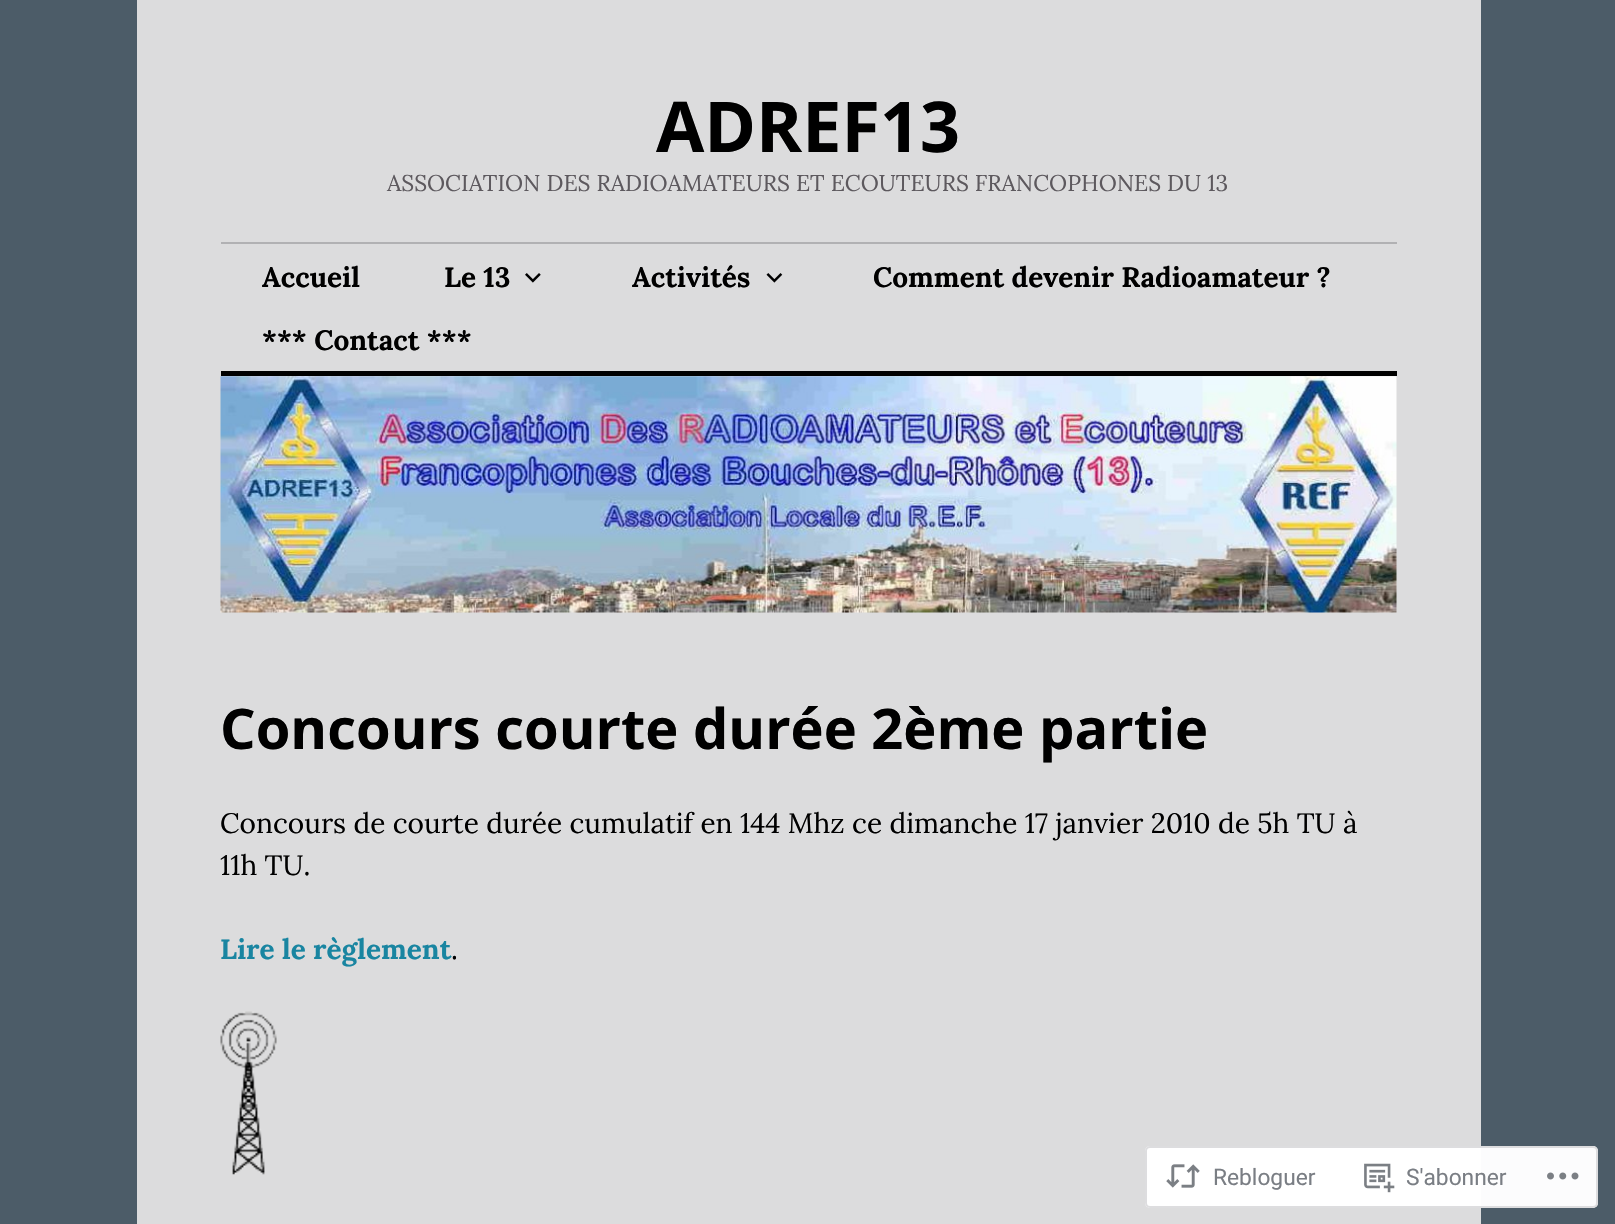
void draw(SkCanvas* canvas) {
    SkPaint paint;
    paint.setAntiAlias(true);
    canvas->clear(0xFF4C5C68);
    paint.setColor(0xFFDCDCDD);
    canvas->drawRect(SkRect::MakeXYWH(137, 0, 1344, 1224), paint);
    SkFont font1(fontMgr->matchFamilyStyle("Open Sans", SkFontStyle::Bold()), 70);
    font1.setSubpixel(true);
    paint.setColor(0xFF000000);
    canvas->drawString("ADREF13", 656, 152, font1, paint);
    SkFont font2(fontMgr->matchFamilyStyle("Lora", SkFontStyle::Normal()), 22.75f);
    font2.setSubpixel(true);
    paint.setColor(0xFF5D595E);
    canvas->drawString("ASSOCIATION DES RADIOAMATEURS ET ECOUTEURS FRANCOPHONES DU 13", 387, 191, font2, paint);
    paint.setColor(0xFFB1B1B3);
    canvas->drawRect(SkRect::MakeXYWH(221, 242, 1176, 2), paint);
    paint.setColor(0xFF000000);
    canvas->drawRect(SkRect::MakeXYWH(221, 371, 1176, 5), paint);
    SkFont font3(fontMgr->matchFamilyStyle("Lora", SkFontStyle::Bold()), 28);
    font3.setSubpixel(true);
    canvas->drawString("Accueil", 262, 287, font3, paint);
    canvas->drawString("Le 13", 444, 287, font3, paint);
    canvas->drawImageRect(SkImages::DeferredFromEncodedData(SkData::MakeFromFileName("img1.png")), SkRect::MakeXYWH(525, 273, 16, 10), SkSamplingOptions());
    canvas->drawString("Activités", 632, 287, font3, paint);
    canvas->drawImageRect(SkImages::DeferredFromEncodedData(SkData::MakeFromFileName("img2.png")), SkRect::MakeXYWH(766, 273, 17, 10), SkSamplingOptions());
    canvas->drawString("Comment devenir Radioamateur ?", 873, 287, font3, paint);
    canvas->drawString("*** Contact ***", 262, 350, font3, paint);
    canvas->drawImageRect(SkImages::DeferredFromEncodedData(SkData::MakeFromFileName("img3.png")), SkRect::MakeXYWH(220, 376, 1177, 237), SkSamplingOptions());
    SkFont font4(fontMgr->matchFamilyStyle("Open Sans", SkFontStyle::Bold()), 56);
    font4.setSubpixel(true);
    canvas->drawString("Concours courte durée 2ème partie", 220, 749, font4, paint);
    SkFont font5(fontMgr->matchFamilyStyle("Lora", SkFontStyle::Normal()), 28);
    font5.setSubpixel(true);
    canvas->drawString("Concours de courte durée cumulatif en 144 Mhz ce dimanche 17 janvier 2010 de 5h TU à", 220, 833, font5, paint);
    canvas->drawString("11h TU.", 220, 875, font5, paint);
    paint.setColor(0xFF1985A1);
    canvas->drawString("Lire le règlement", 220, 959, font3, paint);
    paint.setColor(0xFF000000);
    canvas->drawString(".", 451, 959, font5, paint);
    canvas->drawImageRect(SkImages::DeferredFromEncodedData(SkData::MakeFromFileName("img4.png")), SkRect::MakeXYWH(220, 1011, 57, 164), SkSamplingOptions());
    paint.setColor(0xFAFFFFFF);
    canvas->drawRoundRect(SkRect::MakeXYWH(1145, 1146, 453, 62), 5, 5, paint);
    paint.setStyle(SkPaint::kStroke_Style);
    paint.setStrokeWidth(2);
    paint.setColor(0xFADCDCDE);
    canvas->drawRoundRect(SkRect::MakeXYWH(1146, 1147, 451, 60), 4, 4, paint);
    canvas->drawImageRect(SkImages::DeferredFromEncodedData(SkData::MakeFromFileName("img5.png")), SkRect::MakeXYWH(1166, 1164, 34, 24), SkSamplingOptions());
    SkFont font6(fontMgr->matchFamilyStyle("Roboto", SkFontStyle::Normal()), 22.75f);
    font6.setSubpixel(true);
    paint.setStyle(SkPaint::kFill_Style);
    paint.setColor(0xFF7A7E84);
    canvas->drawString("Rebloguer", 1213, 1185, font6, paint);
    canvas->drawImageRect(SkImages::DeferredFromEncodedData(SkData::MakeFromFileName("img6.png")), SkRect::MakeXYWH(1364, 1163, 31, 30), SkSamplingOptions());
    canvas->drawString("S'abonner", 1406, 1185, font6, paint);
    canvas->drawImageRect(SkImages::DeferredFromEncodedData(SkData::MakeFromFileName("img7.png")), SkRect::MakeXYWH(1547, 1172, 32, 8), SkSamplingOptions());
}
